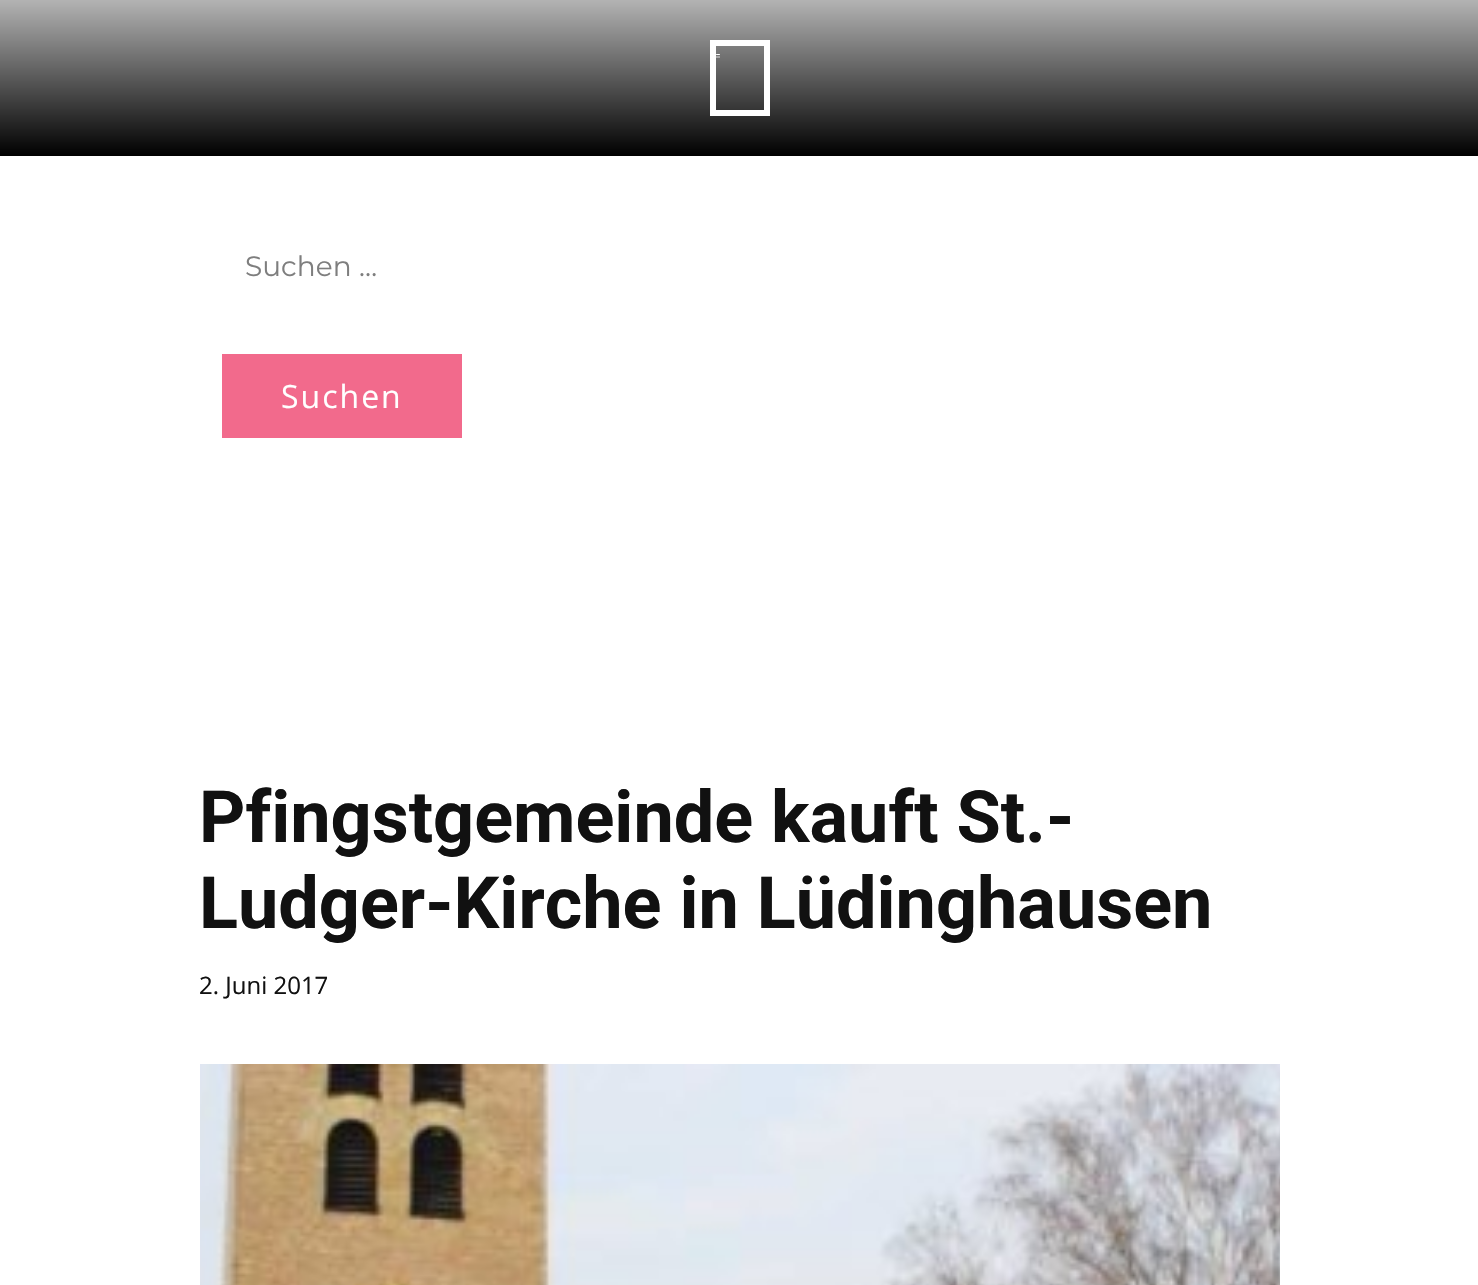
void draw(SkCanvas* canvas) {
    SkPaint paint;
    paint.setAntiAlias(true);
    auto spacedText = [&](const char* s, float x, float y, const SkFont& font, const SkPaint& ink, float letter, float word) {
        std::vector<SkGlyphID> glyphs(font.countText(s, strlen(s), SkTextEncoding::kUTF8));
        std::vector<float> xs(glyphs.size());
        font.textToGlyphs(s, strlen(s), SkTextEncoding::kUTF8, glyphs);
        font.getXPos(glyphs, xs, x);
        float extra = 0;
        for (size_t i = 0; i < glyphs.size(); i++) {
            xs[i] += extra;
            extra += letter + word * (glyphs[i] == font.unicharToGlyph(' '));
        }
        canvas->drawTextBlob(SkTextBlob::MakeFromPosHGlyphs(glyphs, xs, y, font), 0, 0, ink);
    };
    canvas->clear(0xFFFFFFFF);
    {
        const SkColor colors[] = {0xFFB3B3B3, 0xFF000000};
        const float stops[] = {0, 1};
        const SkPoint ends[] = {{739, 0}, {739, 156}};
        paint.setShader(SkGradientShader::MakeLinear(ends, colors, stops, 2, SkTileMode::kClamp));
        paint.setAlpha(255);
    }
    canvas->drawRect(SkRect::MakeXYWH(0, 0, 1478, 156), paint);
    paint.setStyle(SkPaint::kStroke_Style);
    paint.setStrokeWidth(6);
    paint.setShader(nullptr);
    paint.setColor(0xFFFFFFFF);
    canvas->drawRect(SkRect::MakeXYWH(713, 43, 54, 70), paint);
    paint.setStyle(SkPaint::kFill_Style);
    canvas->drawRoundRect(SkRect::MakeXYWH(716, 54, 4, 1), 0.5f, 0.5f, paint);
    paint.setColor(0xFFA7A7A7);
    canvas->drawRect(SkRect::MakeXYWH(716, 56, 4, 2), paint);
    SkFont font1(fontMgr->matchFamilyStyle("Montserrat", SkFontStyle::Normal()), 28);
    font1.setSubpixel(true);
    paint.setColor(0xFF7E7E7E);
    canvas->drawString("Suchen …", 245, 276, font1, paint);
    paint.setColor(0xFFF26A8C);
    canvas->drawRect(SkRect::MakeXYWH(222, 354, 240, 84), paint);
    SkFont font2(fontMgr->matchFamilyStyle("Open Sans", SkFontStyle::Normal()), 32);
    font2.setSubpixel(true);
    paint.setColor(0xFFFFFFFF);
    spacedText("Suchen", 281, 408, font2, paint, 2, 0);
    SkFont font3(fontMgr->matchFamilyStyle("Roboto", SkFontStyle::Bold()), 72);
    font3.setSubpixel(true);
    paint.setColor(0xFF111111);
    canvas->drawString("Pfingstgemeinde kauft St.-", 199, 842, font3, paint);
    canvas->drawString("Ludger-Kirche in Lüdinghausen", 199, 928, font3, paint);
    SkFont font4(fontMgr->matchFamilyStyle("Open Sans", SkFontStyle::Normal()), 24);
    font4.setSubpixel(true);
    canvas->drawString("2. Juni 2017", 199, 994, font4, paint);
    canvas->drawImageRect(SkImages::DeferredFromEncodedData(SkData::MakeFromFileName("img1.png")), SkRect::MakeXYWH(200, 1064, 1080, 221), SkSamplingOptions());
}
